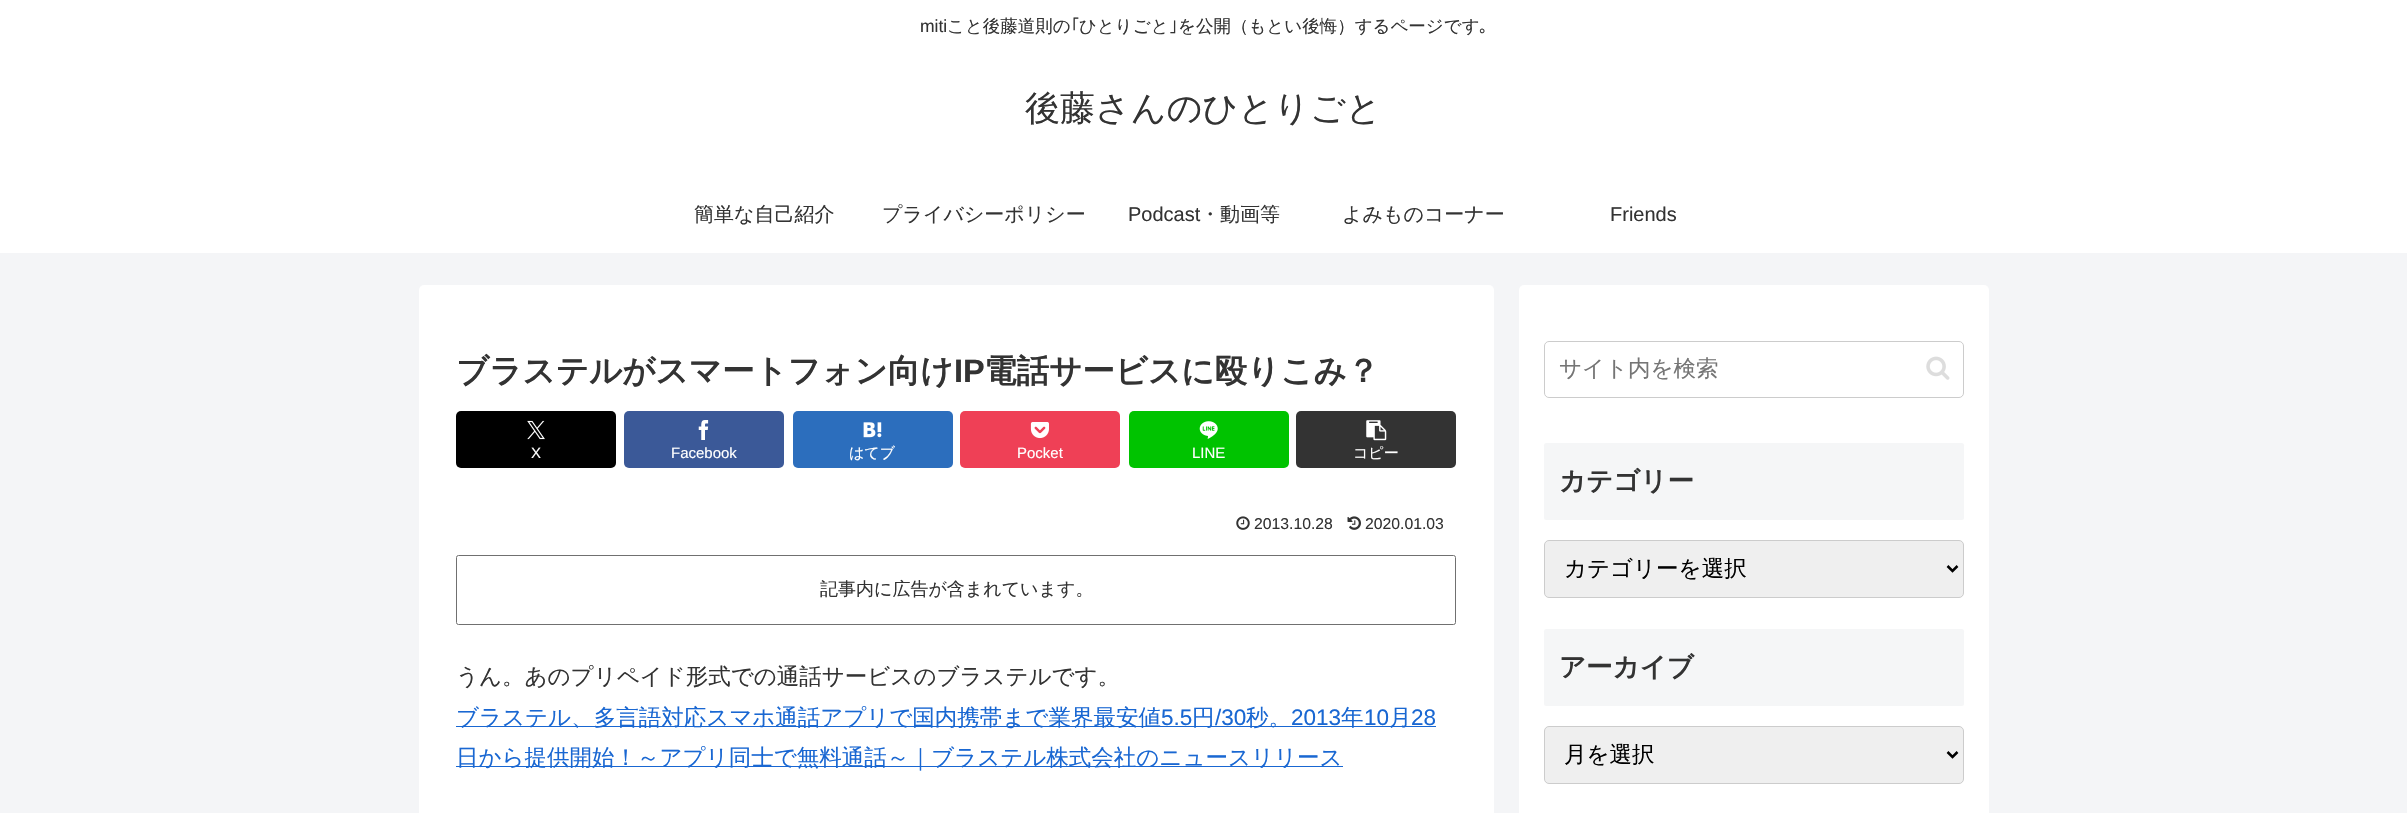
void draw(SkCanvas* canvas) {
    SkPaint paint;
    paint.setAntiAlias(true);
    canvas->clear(0xFFF4F5F7);
    paint.setColor(0xFFFFFFFF);
    canvas->drawRect(SkRect::MakeXYWH(0, 0, 2407, 253), paint);
    SkFont font1(fontMgr->matchFamilyStyle("Liberation Sans", SkFontStyle::Normal()), 17.5f);
    font1.setSubpixel(true);
    paint.setColor(0xFF333333);
    canvas->drawString("miti", 920, 32, font1, paint);
    SkFont font2(fontMgr->matchFamilyStyle("WenQuanYi Zen Hei", SkFontStyle(500, SkFontStyle::kNormal_Width, SkFontStyle::kUpright_Slant)), 17.5f);
    font2.setSubpixel(true);
    canvas->drawString("こと後藤道則の", 947, 32, font2, paint);
    SkFont font3(fontMgr->matchFamilyStyle("IPAPGothic", SkFontStyle::Normal()), 17.5f);
    font3.setSubpixel(true);
    canvas->drawString("｢", 1071, 32, font3, paint);
    canvas->drawString("ひとりごと", 1079, 32, font2, paint);
    canvas->drawString("｣", 1169, 32, font3, paint);
    canvas->drawString("を公開（もとい後悔）するページです", 1178, 32, font2, paint);
    canvas->drawString("｡", 1479, 32, font3, paint);
    SkFont font4(fontMgr->matchFamilyStyle("WenQuanYi Zen Hei", SkFontStyle(500, SkFontStyle::kNormal_Width, SkFontStyle::kUpright_Slant)), 35);
    font4.setSubpixel(true);
    canvas->drawString("後藤さんのひとりごと", 1025, 120, font4, paint);
    SkFont font5(fontMgr->matchFamilyStyle("WenQuanYi Zen Hei", SkFontStyle(500, SkFontStyle::kNormal_Width, SkFontStyle::kUpright_Slant)), 20);
    font5.setSubpixel(true);
    canvas->drawString("簡単な自己紹介", 694, 221, font5, paint);
    canvas->drawString("プライバシーポリシー", 882, 221, font5, paint);
    SkFont font6(fontMgr->matchFamilyStyle("Liberation Sans", SkFontStyle::Normal()), 20);
    font6.setSubpixel(true);
    canvas->drawString("Podcast", 1128, 221, font6, paint);
    canvas->drawString("・動画等", 1200, 221, font5, paint);
    canvas->drawString("よみものコーナー", 1342, 221, font5, paint);
    canvas->drawString("Friends", 1610, 221, font6, paint);
    paint.setColor(0xFFFFFFFF);
    canvas->drawRoundRect(SkRect::MakeXYWH(419, 285, 1075, 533), 5, 5, paint);
    SkFont font7(fontMgr->matchFamilyStyle("WenQuanYi Zen Hei", SkFontStyle::Bold()), 32.5f);
    font7.setSubpixel(true);
    paint.setColor(0xFF333333);
    canvas->drawString("ブラステルがスマートフォン向け", 456, 382, font7, paint);
    SkFont font8(fontMgr->matchFamilyStyle("Liberation Sans", SkFontStyle::Bold()), 32.5f);
    font8.setSubpixel(true);
    canvas->drawString("IP", 954, 382, font8, paint);
    canvas->drawString("電話サービスに殴りこみ？", 984, 382, font7, paint);
    paint.setColor(0xFF000000);
    canvas->drawRoundRect(SkRect::MakeXYWH(456, 411, 160, 57), 5, 5, paint);
    canvas->drawImageRect(SkImages::DeferredFromEncodedData(SkData::MakeFromFileName("img1.png")), SkRect::MakeXYWH(527, 420, 18, 20), SkSamplingOptions());
    SkFont font9(fontMgr->matchFamilyStyle("Liberation Sans", SkFontStyle::Normal()), 15);
    font9.setSubpixel(true);
    paint.setColor(0xFFFFFFFF);
    canvas->drawString("X", 531, 458, font9, paint);
    paint.setColor(0xFF3B5998);
    canvas->drawRoundRect(SkRect::MakeXYWH(624, 411, 160, 57), 5, 5, paint);
    canvas->drawImageRect(SkImages::DeferredFromEncodedData(SkData::MakeFromFileName("img2.png")), SkRect::MakeXYWH(698, 420, 11, 20), SkSamplingOptions());
    paint.setColor(0xFFFFFFFF);
    canvas->drawString("Facebook", 671, 458, font9, paint);
    paint.setColor(0xFF2C6EBD);
    canvas->drawRoundRect(SkRect::MakeXYWH(793, 411, 160, 57), 5, 5, paint);
    canvas->drawImageRect(SkImages::DeferredFromEncodedData(SkData::MakeFromFileName("img3.png")), SkRect::MakeXYWH(863, 422, 19, 16), SkSamplingOptions());
    SkFont font10(fontMgr->matchFamilyStyle("WenQuanYi Zen Hei", SkFontStyle(500, SkFontStyle::kNormal_Width, SkFontStyle::kUpright_Slant)), 15);
    font10.setSubpixel(true);
    paint.setColor(0xFFFFFFFF);
    canvas->drawString("はてブ", 849, 458, font10, paint);
    paint.setColor(0xFFEF4056);
    canvas->drawRoundRect(SkRect::MakeXYWH(960, 411, 160, 57), 5, 5, paint);
    canvas->drawImageRect(SkImages::DeferredFromEncodedData(SkData::MakeFromFileName("img4.png")), SkRect::MakeXYWH(1030, 422, 19, 17), SkSamplingOptions());
    paint.setColor(0xFFFFFFFF);
    canvas->drawString("Pocket", 1017, 458, font9, paint);
    paint.setColor(0xFF00C300);
    canvas->drawRoundRect(SkRect::MakeXYWH(1129, 411, 160, 57), 5, 5, paint);
    canvas->drawImageRect(SkImages::DeferredFromEncodedData(SkData::MakeFromFileName("img5.png")), SkRect::MakeXYWH(1199, 421, 19, 18), SkSamplingOptions());
    paint.setColor(0xFFFFFFFF);
    canvas->drawString("LINE", 1192, 458, font9, paint);
    paint.setColor(0xFF333333);
    canvas->drawRoundRect(SkRect::MakeXYWH(1296, 411, 160, 57), 5, 5, paint);
    canvas->drawImageRect(SkImages::DeferredFromEncodedData(SkData::MakeFromFileName("img6.png")), SkRect::MakeXYWH(1366, 420, 21, 21), SkSamplingOptions());
    paint.setColor(0xFFFFFFFF);
    canvas->drawString("コピー", 1353, 458, font10, paint);
    canvas->drawImageRect(SkImages::DeferredFromEncodedData(SkData::MakeFromFileName("img7.png")), SkRect::MakeXYWH(1236, 516, 14, 14), SkSamplingOptions());
    SkFont font11(fontMgr->matchFamilyStyle("Liberation Sans", SkFontStyle::Normal()), 15.75f);
    font11.setSubpixel(true);
    paint.setColor(0xFF333333);
    canvas->drawString("2013.10.28", 1254, 529, font11, paint);
    canvas->drawImageRect(SkImages::DeferredFromEncodedData(SkData::MakeFromFileName("img8.png")), SkRect::MakeXYWH(1347, 516, 14, 14), SkSamplingOptions());
    canvas->drawString("2020.01.03", 1365, 529, font11, paint);
    paint.setStyle(SkPaint::kStroke_Style);
    paint.setStrokeWidth(1);
    paint.setColor(0xFF707070);
    canvas->drawRoundRect(SkRect::MakeXYWH(456.5f, 555.5f, 999, 69), 2, 2, paint);
    SkFont font12(fontMgr->matchFamilyStyle("WenQuanYi Zen Hei", SkFontStyle(500, SkFontStyle::kNormal_Width, SkFontStyle::kUpright_Slant)), 18);
    font12.setSubpixel(true);
    paint.setStyle(SkPaint::kFill_Style);
    paint.setColor(0xFF333333);
    canvas->drawString("記事内に広告が含まれています。", 820, 595, font12, paint);
    SkFont font13(fontMgr->matchFamilyStyle("WenQuanYi Zen Hei", SkFontStyle(500, SkFontStyle::kNormal_Width, SkFontStyle::kUpright_Slant)), 22.5f);
    font13.setSubpixel(true);
    canvas->drawString("うん。あのプリペイド形式での通話サービスのブラステルです。", 456, 684, font13, paint);
    paint.setColor(0xFF1967D2);
    canvas->drawRect(SkRect::MakeXYWH(456, 726, 980, 1), paint);
    canvas->drawString("ブラステル、多言語対応スマホ通話アプリで国内携帯まで業界最安値", 456, 725, font13, paint);
    SkFont font14(fontMgr->matchFamilyStyle("Liberation Sans", SkFontStyle::Normal()), 22.5f);
    font14.setSubpixel(true);
    canvas->drawString("5.5", 1161, 725, font14, paint);
    canvas->drawString("円", 1192, 725, font13, paint);
    canvas->drawString("/30", 1215, 725, font14, paint);
    canvas->drawString("秒。", 1246, 725, font13, paint);
    canvas->drawString("2013", 1291, 725, font14, paint);
    canvas->drawString("年", 1341, 725, font13, paint);
    canvas->drawString("10", 1364, 725, font14, paint);
    canvas->drawString("月", 1389, 725, font13, paint);
    canvas->drawString("28", 1411, 725, font14, paint);
    canvas->drawRect(SkRect::MakeXYWH(456, 766, 887, 1), paint);
    canvas->drawString("日から提供開始！～アプリ同士で無料通話～｜ブラステル株式会社のニュースリリース", 456, 765, font13, paint);
    paint.setColor(0xFFFFFFFF);
    canvas->drawRoundRect(SkRect::MakeXYWH(1519, 285, 470, 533), 5, 5, paint);
    paint.setStyle(SkPaint::kStroke_Style);
    paint.setColor(0xFFCCCCCC);
    canvas->drawRoundRect(SkRect::MakeXYWH(1544.5f, 341.5f, 419, 56), 4.5f, 4.5f, paint);
    paint.setStyle(SkPaint::kFill_Style);
    paint.setColor(0xFF757575);
    canvas->drawString("サイト内を検索", 1559, 376, font13, paint);
    canvas->drawImageRect(SkImages::DeferredFromEncodedData(SkData::MakeFromFileName("img9.png")), SkRect::MakeXYWH(1926, 356, 24, 24), SkSamplingOptions());
    paint.setColor(0xFFF5F6F7);
    canvas->drawRoundRect(SkRect::MakeXYWH(1544, 443, 420, 77), 2.5f, 2.5f, paint);
    SkFont font15(fontMgr->matchFamilyStyle("WenQuanYi Zen Hei", SkFontStyle::Bold()), 26.5f);
    font15.setSubpixel(true);
    paint.setColor(0xFF333333);
    canvas->drawString("カテゴリー", 1559, 490, font15, paint);
    paint.setColor(0xFFEFEFEF);
    canvas->drawRoundRect(SkRect::MakeXYWH(1544.5f, 540.5f, 419, 57), 4.5f, 4.5f, paint);
    paint.setStyle(SkPaint::kStroke_Style);
    paint.setColor(0xFFCCCCCC);
    canvas->drawRoundRect(SkRect::MakeXYWH(1544.5f, 540.5f, 419, 57), 4.5f, 4.5f, paint);
    paint.setStrokeWidth(2.5f);
    paint.setColor(0xFF000000);
    canvas->drawPath(SkPathBuilder().moveTo(1947.5f, 566).lineTo(1952.5f, 571).lineTo(1957.5f, 566).detach(), paint);
    paint.setStyle(SkPaint::kFill_Style);
    canvas->drawString("カテゴリーを選択", 1564, 576, font13, paint);
    paint.setColor(0xFFF5F6F7);
    canvas->drawRoundRect(SkRect::MakeXYWH(1544, 629, 420, 77), 2.5f, 2.5f, paint);
    paint.setColor(0xFF333333);
    canvas->drawString("アーカイブ", 1559, 676, font15, paint);
    paint.setColor(0xFFEFEFEF);
    canvas->drawRoundRect(SkRect::MakeXYWH(1544.5f, 726.5f, 419, 57), 4.5f, 4.5f, paint);
    paint.setStyle(SkPaint::kStroke_Style);
    paint.setStrokeWidth(1);
    paint.setColor(0xFFCCCCCC);
    canvas->drawRoundRect(SkRect::MakeXYWH(1544.5f, 726.5f, 419, 57), 4.5f, 4.5f, paint);
    paint.setStrokeWidth(2.5f);
    paint.setColor(0xFF000000);
    canvas->drawPath(SkPathBuilder().moveTo(1947.5f, 752).lineTo(1952.5f, 757).lineTo(1957.5f, 752).detach(), paint);
    paint.setStyle(SkPaint::kFill_Style);
    canvas->drawString("月を選択", 1564, 762, font13, paint);
}
